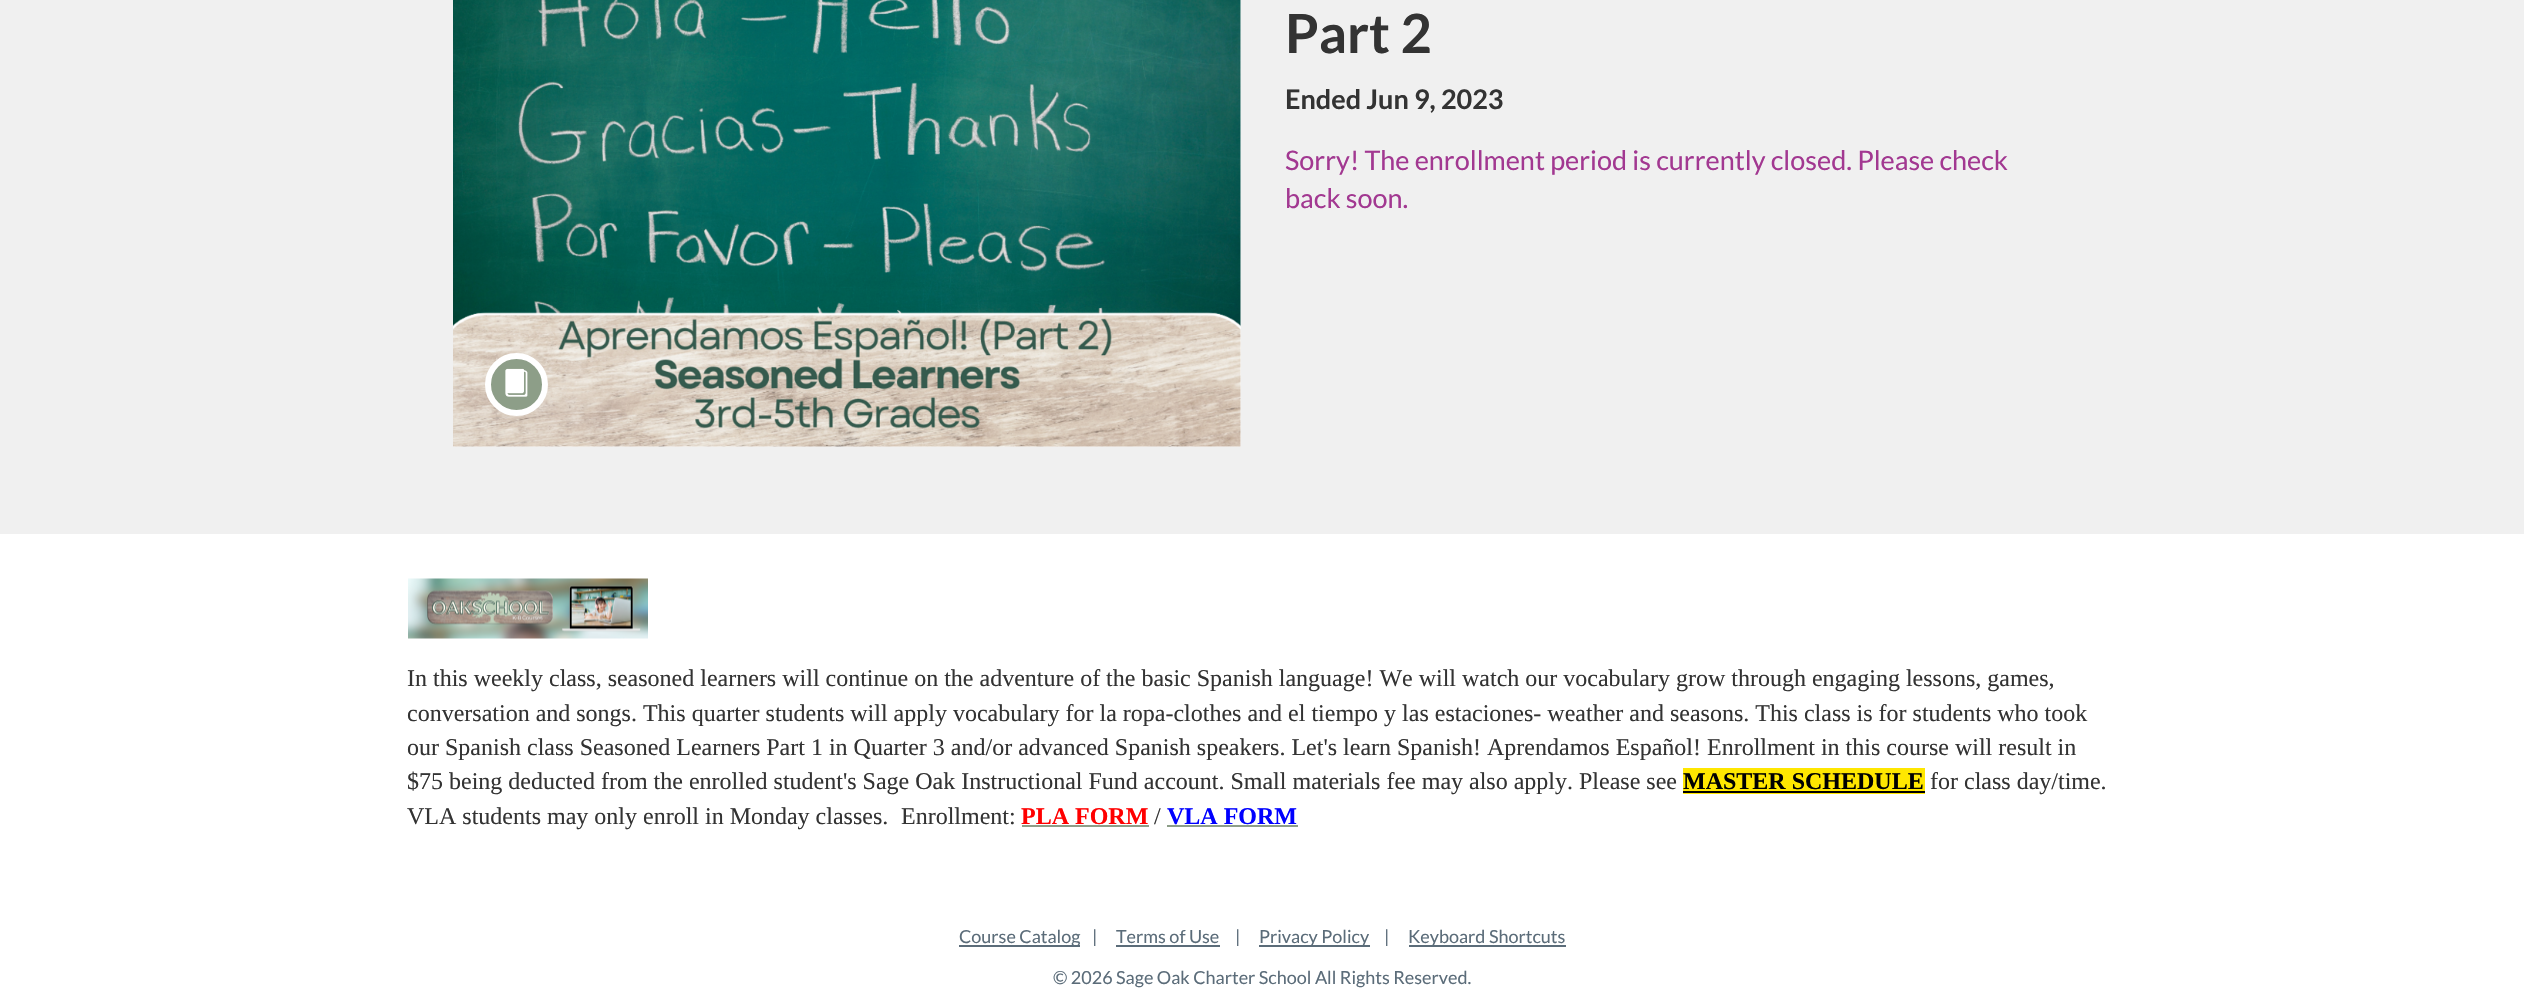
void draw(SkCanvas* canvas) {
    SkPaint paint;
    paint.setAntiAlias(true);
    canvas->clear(0xFFFFFFFF);
    paint.setColor(0xFFF0F0F0);
    canvas->drawRect(SkRect::MakeXYWH(0, 0, 2524, 534), paint);
    paint.setColor(0xFFF8F8F8);
    canvas->drawRect(SkRect::MakeXYWH(453, 0, 788, 447), paint);
    canvas->drawImageRect(SkImages::DeferredFromEncodedData(SkData::MakeFromFileName("img1.png")), SkRect::MakeXYWH(453, 0, 788, 447), SkSamplingOptions());
    paint.setColor(0xFF8D9E88);
    canvas->drawCircle(516.5f, 384.5f, 28.5f, paint);
    paint.setStyle(SkPaint::kStroke_Style);
    paint.setStrokeWidth(6);
    paint.setColor(0xFFFFFFFF);
    canvas->drawCircle(516.5f, 384.5f, 28.5f, paint);
    canvas->drawImageRect(SkImages::DeferredFromEncodedData(SkData::MakeFromFileName("img2.png")), SkRect::MakeXYWH(505, 368, 23, 29), SkSamplingOptions());
    SkFont font1(fontMgr->matchFamilyStyle("Lato", SkFontStyle::Bold()), 54);
    font1.setSubpixel(true);
    paint.setStyle(SkPaint::kFill_Style);
    paint.setColor(0xFF333333);
    canvas->drawString("Part 2", 1285, 53, font1, paint);
    SkFont font2(fontMgr->matchFamilyStyle("Lato", SkFontStyle::Bold()), 27);
    font2.setSubpixel(true);
    canvas->drawString("Ended Jun 9, 2023", 1285, 109, font2, paint);
    SkFont font3(fontMgr->matchFamilyStyle("Lato", SkFontStyle::Normal()), 27);
    font3.setSubpixel(true);
    paint.setColor(0xFFA23891);
    canvas->drawString("Sorry! The enrollment period is currently closed. Please check", 1285, 170, font3, paint);
    canvas->drawString("back soon.", 1285, 208, font3, paint);
    canvas->drawImageRect(SkImages::DeferredFromEncodedData(SkData::MakeFromFileName("img3.png")), SkRect::MakeXYWH(408, 578, 240, 61), SkSamplingOptions());
    SkFont font4(fontMgr->matchFamilyStyle("Liberation Serif", SkFontStyle::Normal()), 24);
    font4.setSubpixel(true);
    paint.setColor(0xFF333333);
    canvas->drawString("In this weekly class, seasoned learners will continue on the adventure of the basic Spanish language! We will watch our vocabulary grow through engaging lessons, games,", 407, 686, font4, paint);
    canvas->drawString("conversation and songs. This quarter students will apply vocabulary for la ropa-clothes and el tiempo y las estaciones- weather and seasons. This class is for students who took", 407, 721, font4, paint);
    canvas->drawString("our Spanish class Seasoned Learners Part 1 in Quarter 3 and/or advanced Spanish speakers. Let's learn Spanish! Aprendamos Español! Enrollment in this course will result in", 407, 755, font4, paint);
    canvas->drawString("$75 being deducted from the enrolled student's Sage Oak Instructional Fund account. Small materials fee may also apply. Please see", 407, 789, font4, paint);
    paint.setColor(0xFFFFE700);
    canvas->drawRect(SkRect::MakeXYWH(1683, 768, 242, 26), paint);
    SkFont font5(fontMgr->matchFamilyStyle("Liberation Serif", SkFontStyle::Bold()), 24);
    font5.setSubpixel(true);
    paint.setColor(0xFF000000);
    canvas->drawString("MASTER SCHEDULE", 1683, 789, font5, paint);
    canvas->drawRect(SkRect::MakeXYWH(1683, 791, 242, 2), paint);
    paint.setColor(0xFF333333);
    canvas->drawString("for class day/time.", 1930, 789, font4, paint);
    canvas->drawString("VLA students may only enroll in Monday classes.", 407, 824, font4, paint);
    canvas->drawString("Enrollment:", 901, 824, font4, paint);
    paint.setColor(0xFFFF0000);
    canvas->drawString("PLA FORM", 1021, 824, font5, paint);
    paint.setColor(0xFF8D9E88);
    canvas->drawRect(SkRect::MakeXYWH(1022, 825, 127, 2), paint);
    paint.setColor(0xFF333333);
    canvas->drawString("/", 1154, 824, font4, paint);
    paint.setColor(0xFF0000FF);
    canvas->drawString("VLA FORM", 1167, 824, font5, paint);
    paint.setColor(0xFF8D9E88);
    canvas->drawRect(SkRect::MakeXYWH(1167, 825, 131, 2), paint);
    paint.setColor(0xFF5B6C79);
    canvas->drawRect(SkRect::MakeXYWH(959, 945, 121, 2), paint);
    SkFont font6(fontMgr->matchFamilyStyle("Lato", SkFontStyle::Normal()), 18);
    font6.setSubpixel(true);
    canvas->drawString("Course Catalog", 959, 943, font6, paint);
    canvas->drawString("|", 1092, 943, font6, paint);
    canvas->drawString("Terms of Use", 1116, 943, font6, paint);
    canvas->drawRect(SkRect::MakeXYWH(1116, 945, 104, 2), paint);
    canvas->drawString("|", 1235, 943, font6, paint);
    canvas->drawRect(SkRect::MakeXYWH(1259, 945, 111, 2), paint);
    canvas->drawString("Privacy Policy", 1259, 943, font6, paint);
    canvas->drawString("|", 1384, 943, font6, paint);
    canvas->drawRect(SkRect::MakeXYWH(1409, 945, 157, 2), paint);
    canvas->drawString("Keyboard Shortcuts", 1408, 943, font6, paint);
    canvas->drawString("© 2026 Sage Oak Charter School All Rights Reserved.", 1053, 984, font6, paint);
}
